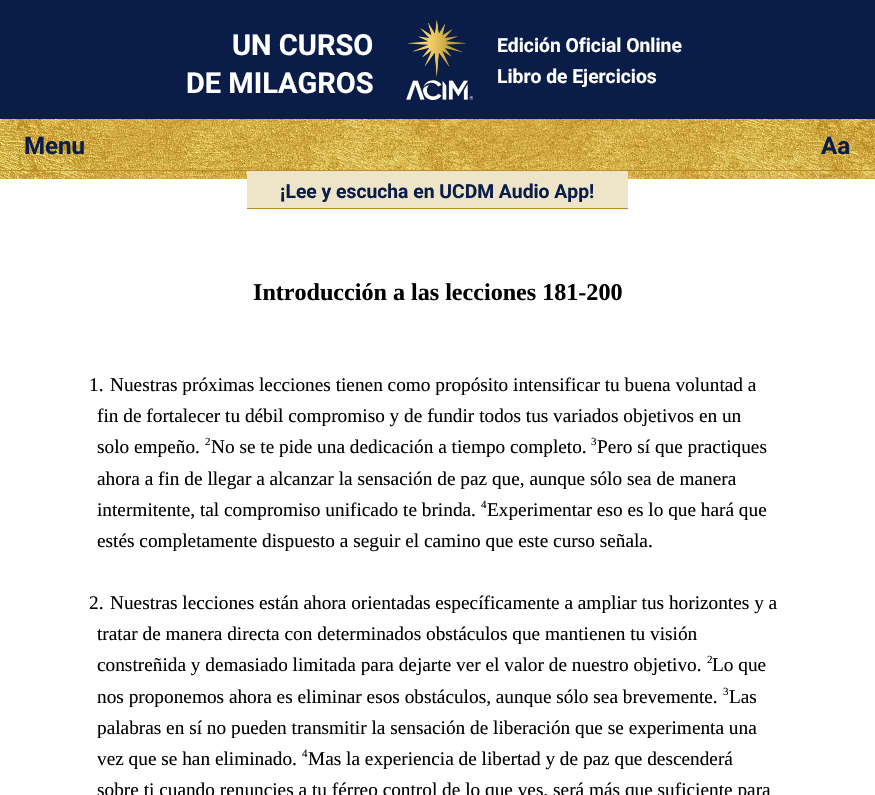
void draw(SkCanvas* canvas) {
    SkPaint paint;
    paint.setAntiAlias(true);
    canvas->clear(0xFFFFFFFF);
    paint.setColor(0xFF091D48);
    canvas->drawRect(SkRect::MakeXYWH(0, 0, 875, 119), paint);
    SkFont font1(fontMgr->matchFamilyStyle("Roboto", SkFontStyle::Bold()), 29);
    font1.setSubpixel(true);
    paint.setColor(0xFFFFFFFF);
    canvas->drawString("UN CURSO", 232, 55, font1, paint);
    canvas->drawString("DE MILAGROS", 186, 93, font1, paint);
    canvas->drawImageRect(SkImages::DeferredFromEncodedData(SkData::MakeFromFileName("img1.png")), SkRect::MakeXYWH(406, 20, 67, 80), SkSamplingOptions());
    SkFont font2(fontMgr->matchFamilyStyle("Roboto", SkFontStyle::Bold()), 19.3f);
    font2.setSubpixel(true);
    canvas->drawString("Edición Oficial Online", 497, 52, font2, paint);
    canvas->drawString("Libro de Ejercicios", 497, 83, font2, paint);
    canvas->drawImageRect(SkImages::DeferredFromEncodedData(SkData::MakeFromFileName("img2.png")), SkRect::MakeXYWH(0, 119, 875, 60), SkSamplingOptions());
    paint.setColor(0xFFBF8731);
    canvas->drawRect(SkRect::MakeXYWH(0, 170, 875, 1), paint);
    SkFont font3(fontMgr->matchFamilyStyle("Roboto", SkFontStyle::Bold()), 24.1f);
    font3.setSubpixel(true);
    paint.setColor(0xFF091D48);
    canvas->drawString("Menu", 24, 154, font3, paint);
    canvas->drawString("Aa", 821, 154, font3, paint);
    paint.setColor(0xFFEEE4C8);
    canvas->drawRect(SkRect::MakeXYWH(247, 171, 381, 37), paint);
    paint.setColor(0xFFBF8731);
    canvas->drawRect(SkRect::MakeXYWH(247, 208, 381, 1), paint);
    paint.setColor(0xFF091D48);
    canvas->drawString("¡Lee y escucha en UCDM Audio App!", 280, 198, font2, paint);
    SkFont font4(fontMgr->matchFamilyStyle("Liberation Serif", SkFontStyle::Bold()), 24.1f);
    font4.setSubpixel(true);
    paint.setColor(0xFF000000);
    canvas->drawString("Introducción a las lecciones 181-200", 253, 300, font4, paint);
    SkFont font5(fontMgr->matchFamilyStyle("Liberation Serif", SkFontStyle::Normal()), 19.3f);
    font5.setSubpixel(true);
    canvas->drawString("1.", 89, 391, font5, paint);
    canvas->drawString("Nuestras próximas lecciones tienen como propósito intensificar tu buena voluntad a", 110, 391, font5, paint);
    canvas->drawString("fin de fortalecer tu débil compromiso y de fundir todos tus variados objetivos en un", 97, 422, font5, paint);
    canvas->drawString("solo empeño.", 97, 453, font5, paint);
    SkFont font6(fontMgr->matchFamilyStyle("Liberation Serif", SkFontStyle::Normal()), 11);
    font6.setSubpixel(true);
    canvas->drawString("2", 205, 445, font6, paint);
    canvas->drawString("No se te pide una dedicación a tiempo completo.", 211, 453, font5, paint);
    canvas->drawString("3", 591, 445, font6, paint);
    canvas->drawString("Pero sí que practiques", 597, 453, font5, paint);
    canvas->drawString("ahora a fin de llegar a alcanzar la sensación de paz que, aunque sólo sea de manera", 97, 485, font5, paint);
    canvas->drawString("intermitente, tal compromiso unificado te brinda.", 97, 516, font5, paint);
    canvas->drawString("4", 481, 508, font6, paint);
    canvas->drawString("Experimentar eso es lo que hará que", 487, 516, font5, paint);
    canvas->drawString("estés completamente dispuesto a seguir el camino que este curso señala.", 97, 547, font5, paint);
    canvas->drawString("2.", 89, 609, font5, paint);
    canvas->drawString("Nuestras lecciones están ahora orientadas específicamente a ampliar tus horizontes y a", 110, 609, font5, paint);
    canvas->drawString("tratar de manera directa con determinados obstáculos que mantienen tu visión", 97, 640, font5, paint);
    canvas->drawString("constreñida y demasiado limitada para dejarte ver el valor de nuestro objetivo.", 97, 671, font5, paint);
    canvas->drawString("2", 707, 663, font6, paint);
    canvas->drawString("Lo que", 712, 671, font5, paint);
    canvas->drawString("nos proponemos ahora es eliminar esos obstáculos, aunque sólo sea brevemente.", 97, 703, font5, paint);
    canvas->drawString("3", 723, 695, font6, paint);
    canvas->drawString("Las", 729, 703, font5, paint);
    canvas->drawString("palabras en sí no pueden transmitir la sensación de liberación que se experimenta una", 97, 734, font5, paint);
    canvas->drawString("vez que se han eliminado.", 97, 765, font5, paint);
    canvas->drawString("4", 302, 757, font6, paint);
    canvas->drawString("Mas la experiencia de libertad y de paz que descenderá", 308, 765, font5, paint);
    canvas->drawString("sobre ti cuando renuncies a tu férreo control de lo que ves, será más que suficiente para", 97, 796, font5, paint);
}
